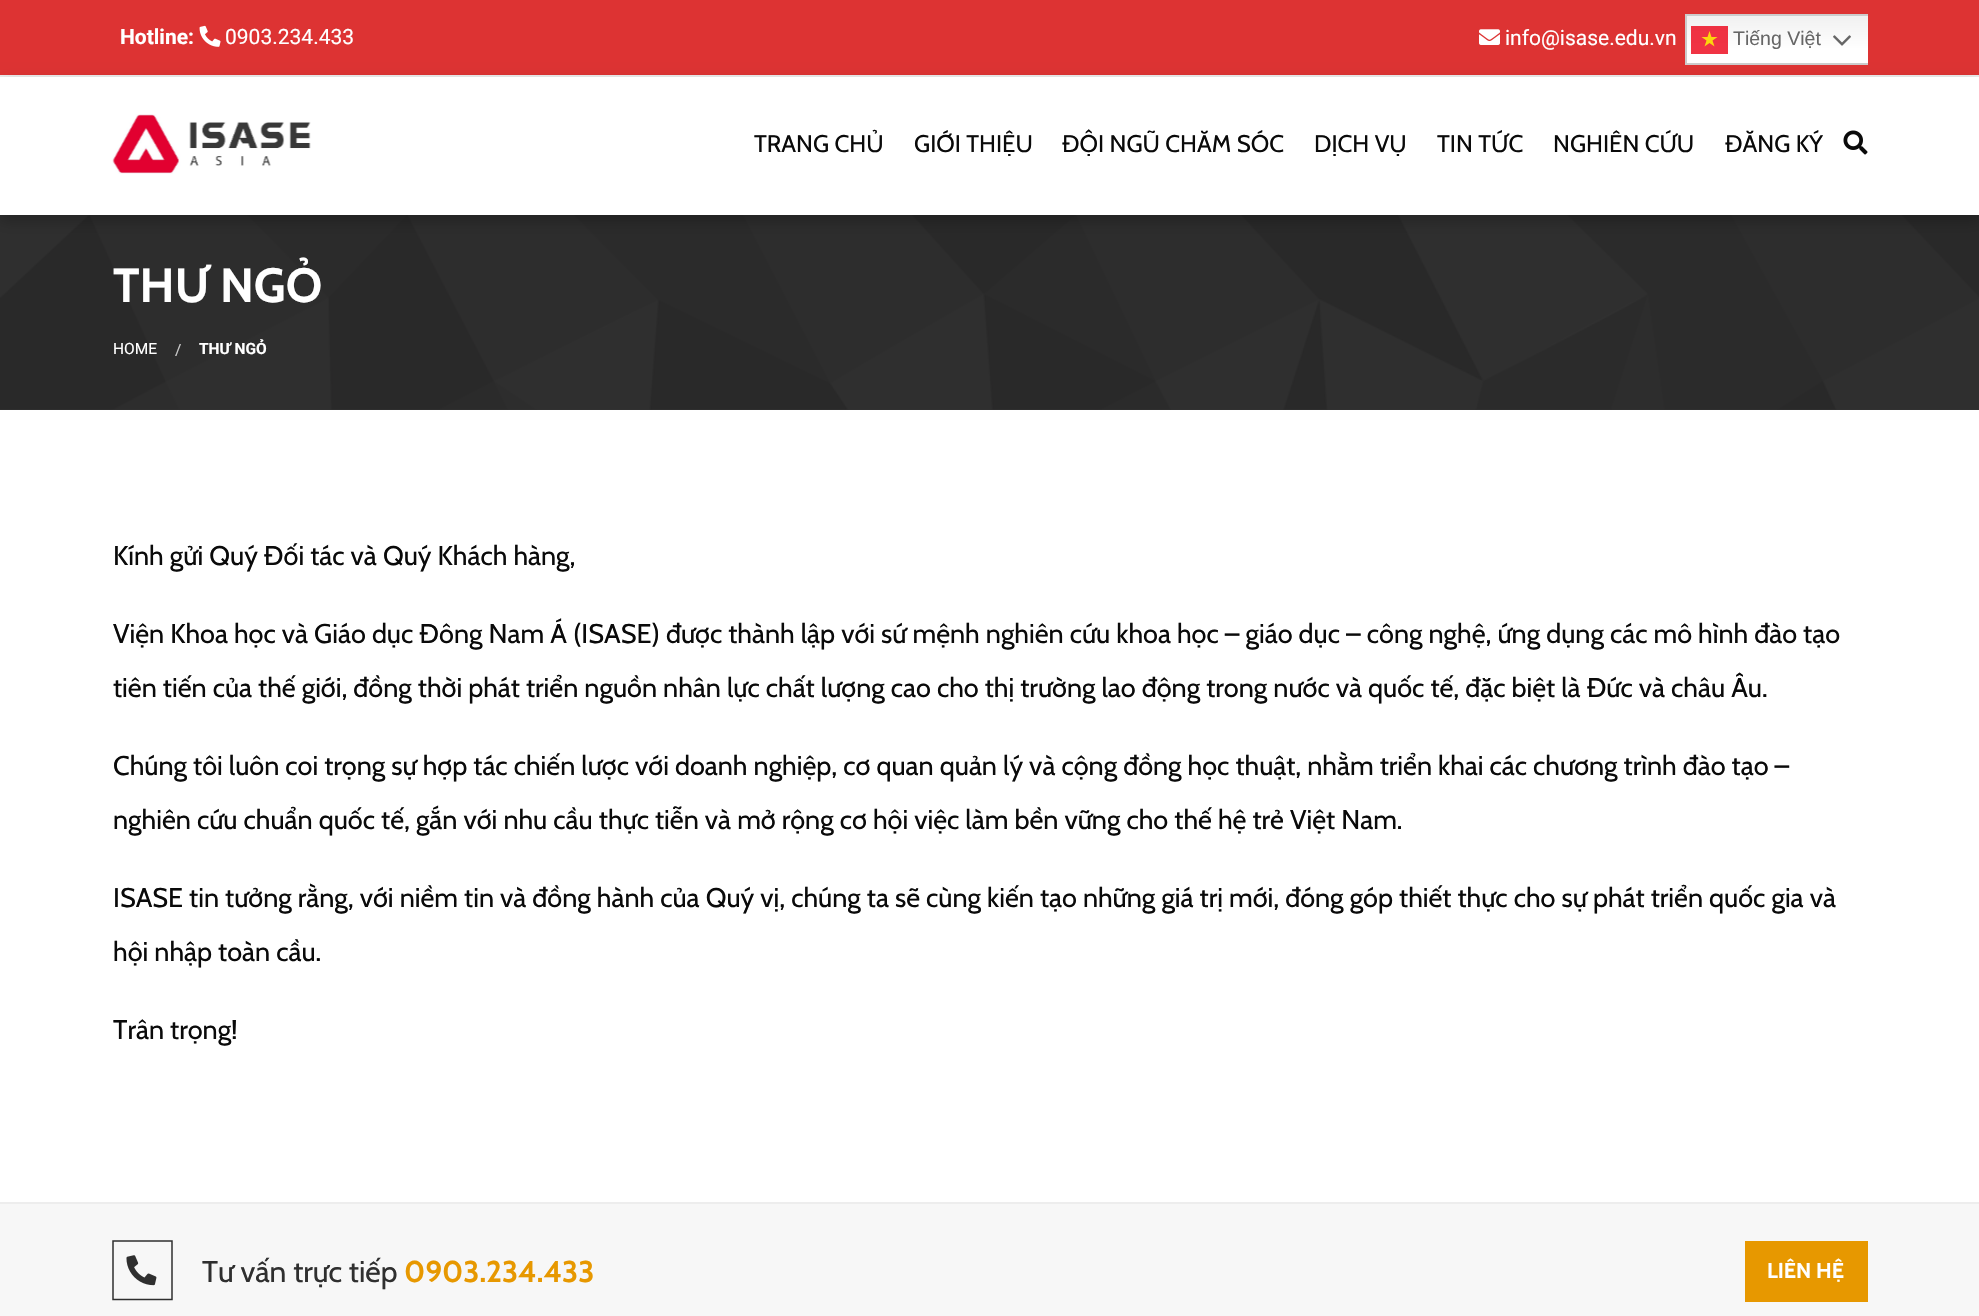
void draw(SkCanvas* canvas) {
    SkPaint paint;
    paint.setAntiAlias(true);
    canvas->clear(0xFFFFFFFF);
    paint.setColor(0xFF323232);
    canvas->drawRect(SkRect::MakeXYWH(0, 409, 1979, 1), paint);
    paint.setColor(0xFFDD3333);
    canvas->drawRect(SkRect::MakeXYWH(0, 0, 1979, 75), paint);
    paint.setColor(0xFFEDEDED);
    canvas->drawRect(SkRect::MakeXYWH(0, 75, 1979, 2), paint);
    SkFont font1(fontMgr->matchFamilyStyle("Roboto", SkFontStyle::Bold()), 21);
    font1.setSubpixel(true);
    paint.setColor(0xFFFFFFFF);
    canvas->drawString("Hotline:", 120, 44, font1, paint);
    canvas->drawImageRect(SkImages::DeferredFromEncodedData(SkData::MakeFromFileName("img1.png")), SkRect::MakeXYWH(199, 25, 22, 22), SkSamplingOptions());
    SkFont font2(fontMgr->matchFamilyStyle("Roboto", SkFontStyle::Normal()), 21);
    font2.setSubpixel(true);
    canvas->drawString("0903.234.433", 225, 44, font2, paint);
    canvas->drawImageRect(SkImages::DeferredFromEncodedData(SkData::MakeFromFileName("img2.png")), SkRect::MakeXYWH(1479, 29, 21, 16), SkSamplingOptions());
    canvas->drawString("info@isase.edu.vn", 1505, 45, font2, paint);
    canvas->drawImageRect(SkImages::DeferredFromEncodedData(SkData::MakeFromFileName("img6.png")), SkRect::MakeXYWH(0, 215, 1979, 195), SkSamplingOptions());
    paint.setColor(0x3D000000);
    paint.setMaskFilter(SkMaskFilter::MakeBlur(kNormal_SkBlurStyle, 7));
    canvas->drawRect(SkRect::MakeXYWH(0, 83, 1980, 138), paint);
    paint.setMaskFilter(nullptr);
    {
        const SkColor colors[] = {0xFFEFEFEF, 0xFFFFFFFF};
        const float stops[] = {0, 0.7f};
        const SkPoint ends[] = {{1776, 13}, {1776, 65}};
        paint.setShader(SkGradientShader::MakeLinear(ends, colors, stops, 2, SkTileMode::kClamp));
        paint.setAlpha(255);
    }
    canvas->drawRect(SkRect::MakeXYWH(1687, 16, 181, 47), paint);
    {
        const SkColor colors[] = {0xFFED3041, 0xFFF03344};
        const float stops[] = {0, 0.7f};
        const SkPoint ends[] = {{1776, 13}, {1776, 65}};
        paint.setShader(SkGradientShader::MakeLinear(ends, colors, stops, 2, SkTileMode::kClamp));
        paint.setAlpha(255);
    }
    canvas->drawRect(SkRect::MakeXYWH(1691, 26, 37, 28), paint);
    canvas->save();
    canvas->clipRect(SkRect::MakeXYWH(1685, 14, 183, 51));
    paint.setStyle(SkPaint::kStroke_Style);
    paint.setStrokeWidth(2);
    paint.setShader(nullptr);
    paint.setColor(0xFFCCCCCC);
    canvas->drawRect(SkRect::MakeXYWH(1686, 15, 281, 49), paint);
    canvas->restore();
    paint.setStyle(SkPaint::kFill_Style);
    paint.setColor(0xFFFCD60D);
    canvas->drawPath(SkPathBuilder(SkPathFillType::kEvenOdd).moveTo(1714.5f, 46.5f).lineTo(1709.5f, 43).lineTo(1704.5f, 46.5f).lineTo(1706.5f, 40.5f).lineTo(1701.5f, 37).lineTo(1707.5f, 37).lineTo(1709.5f, 31).lineTo(1711.5f, 37).lineTo(1717.5f, 37).lineTo(1712.5f, 40.5f).close().detach(), paint);
    SkFont font3(fontMgr->matchFamilyStyle("Liberation Sans", SkFontStyle::Normal()), 19.5f);
    font3.setSubpixel(true);
    paint.setColor(0xFF666666);
    canvas->drawString("Tiếng Việt", 1733, 45, font3, paint);
    canvas->drawImageRect(SkImages::DeferredFromEncodedData(SkData::MakeFromFileName("img3.png")), SkRect::MakeXYWH(1833, 35, 18, 11), SkSamplingOptions());
    paint.setColor(0xFFFFFFFF);
    canvas->drawRect(SkRect::MakeXYWH(0, 77, 1979, 138), paint);
    canvas->drawImageRect(SkImages::DeferredFromEncodedData(SkData::MakeFromFileName("img4.png")), SkRect::MakeXYWH(112, 114, 199, 60), SkSamplingOptions());
    SkFont font4(fontMgr->matchFamilyStyle("Cabin", SkFontStyle::Normal()), 24);
    font4.setSubpixel(true);
    paint.setColor(0xFF0A0A0A);
    canvas->drawString("TRANG CHỦ", 754, 152, font4, paint);
    canvas->drawString("GIỚI THIỆU", 914, 152, font4, paint);
    canvas->drawString("ĐỘI NGŨ CHĂM SÓC", 1062, 152, font4, paint);
    canvas->drawString("DỊCH VỤ", 1314, 152, font4, paint);
    canvas->drawString("TIN TỨC", 1437, 152, font4, paint);
    canvas->drawString("NGHIÊN CỨU", 1553, 152, font4, paint);
    canvas->drawString("ĐĂNG KÝ", 1725, 152, font4, paint);
    canvas->drawImageRect(SkImages::DeferredFromEncodedData(SkData::MakeFromFileName("img5.png")), SkRect::MakeXYWH(1843, 130, 25, 25), SkSamplingOptions());
    SkFont font5(fontMgr->matchFamilyStyle("Cabin", SkFontStyle::Bold()), 48);
    font5.setSubpixel(true);
    paint.setColor(0xFFFFFFFF);
    canvas->drawString("THƯ NGỎ", 113, 302, font5, paint);
    SkFont font6(fontMgr->matchFamilyStyle("Roboto", SkFontStyle::Normal()), 15.5f);
    font6.setSubpixel(true);
    canvas->drawString("HOME", 113, 354, font6, paint);
    paint.setColor(0xFFCACACA);
    canvas->drawString("/", 175, 355, font6, paint);
    SkFont font7(fontMgr->matchFamilyStyle("Roboto", SkFontStyle::Bold()), 15.5f);
    font7.setSubpixel(true);
    paint.setColor(0xFFFFFFFF);
    canvas->drawString("THƯ NGỎ", 199, 354, font7, paint);
    SkFont font8(fontMgr->matchFamilyStyle("Cabin", SkFontStyle::Normal()), 27);
    font8.setSubpixel(true);
    paint.setColor(0xFF0A0A0A);
    canvas->drawString("Kính gửi Quý Đối tác và Quý Khách hàng,", 113, 565, font8, paint);
    canvas->drawString("Viện Khoa học và Giáo dục Đông Nam Á (ISASE) được thành lập với sứ mệnh nghiên cứu khoa học – giáo dục – công nghệ, ứng dụng các mô hình đào tạo", 113, 643, font8, paint);
    canvas->drawString("tiên tiến của thế giới, đồng thời phát triển nguồn nhân lực chất lượng cao cho thị trường lao động trong nước và quốc tế, đặc biệt là Đức và châu Âu.", 113, 697, font8, paint);
    canvas->drawString("Chúng tôi luôn coi trọng sự hợp tác chiến lược với doanh nghiệp, cơ quan quản lý và cộng đồng học thuật, nhằm triển khai các chương trình đào tạo –", 113, 775, font8, paint);
    canvas->drawString("nghiên cứu chuẩn quốc tế, gắn với nhu cầu thực tiễn và mở rộng cơ hội việc làm bền vững cho thế hệ trẻ Việt Nam.", 113, 829, font8, paint);
    canvas->drawString("ISASE tin tưởng rằng, với niềm tin và đồng hành của Quý vị, chúng ta sẽ cùng kiến tạo những giá trị mới, đóng góp thiết thực cho sự phát triển quốc gia và", 113, 907, font8, paint);
    canvas->drawString("hội nhập toàn cầu.", 113, 961, font8, paint);
    canvas->drawString("Trân trọng!", 113, 1039, font8, paint);
    paint.setColor(0xFFF7F7F7);
    canvas->drawRect(SkRect::MakeXYWH(0, 1204, 1979, 112), paint);
    paint.setColor(0xFFEDEDED);
    canvas->drawRect(SkRect::MakeXYWH(0, 1202, 1979, 2), paint);
    paint.setStyle(SkPaint::kStroke_Style);
    paint.setStrokeWidth(1.5f);
    paint.setColor(0xFF2F2F2F);
    canvas->drawPath(SkPathBuilder().moveTo(172, 1241).lineTo(172, 1299.5f).lineTo(113, 1299.5f).lineTo(113, 1241).close().detach(), paint);
    canvas->drawImageRect(SkImages::DeferredFromEncodedData(SkData::MakeFromFileName("img7.png")), SkRect::MakeXYWH(126, 1255, 31, 31), SkSamplingOptions());
    SkFont font9(fontMgr->matchFamilyStyle("Cabin", SkFontStyle::Normal()), 30);
    font9.setSubpixel(true);
    paint.setStyle(SkPaint::kFill_Style);
    canvas->drawString("Tư vấn trực tiếp", 202, 1282, font9, paint);
    SkFont font10(fontMgr->matchFamilyStyle("Cabin", SkFontStyle::Bold()), 30);
    font10.setSubpixel(true);
    paint.setColor(0xFFE79800);
    canvas->drawString("0903.234.433", 404, 1282, font10, paint);
    canvas->drawRect(SkRect::MakeXYWH(1745, 1241, 123, 61), paint);
    SkFont font11(fontMgr->matchFamilyStyle("Cabin", SkFontStyle::Bold()), 21.5f);
    font11.setSubpixel(true);
    paint.setColor(0xFFFFFFFF);
    canvas->drawString("LIÊN HỆ", 1767, 1278, font11, paint);
}
